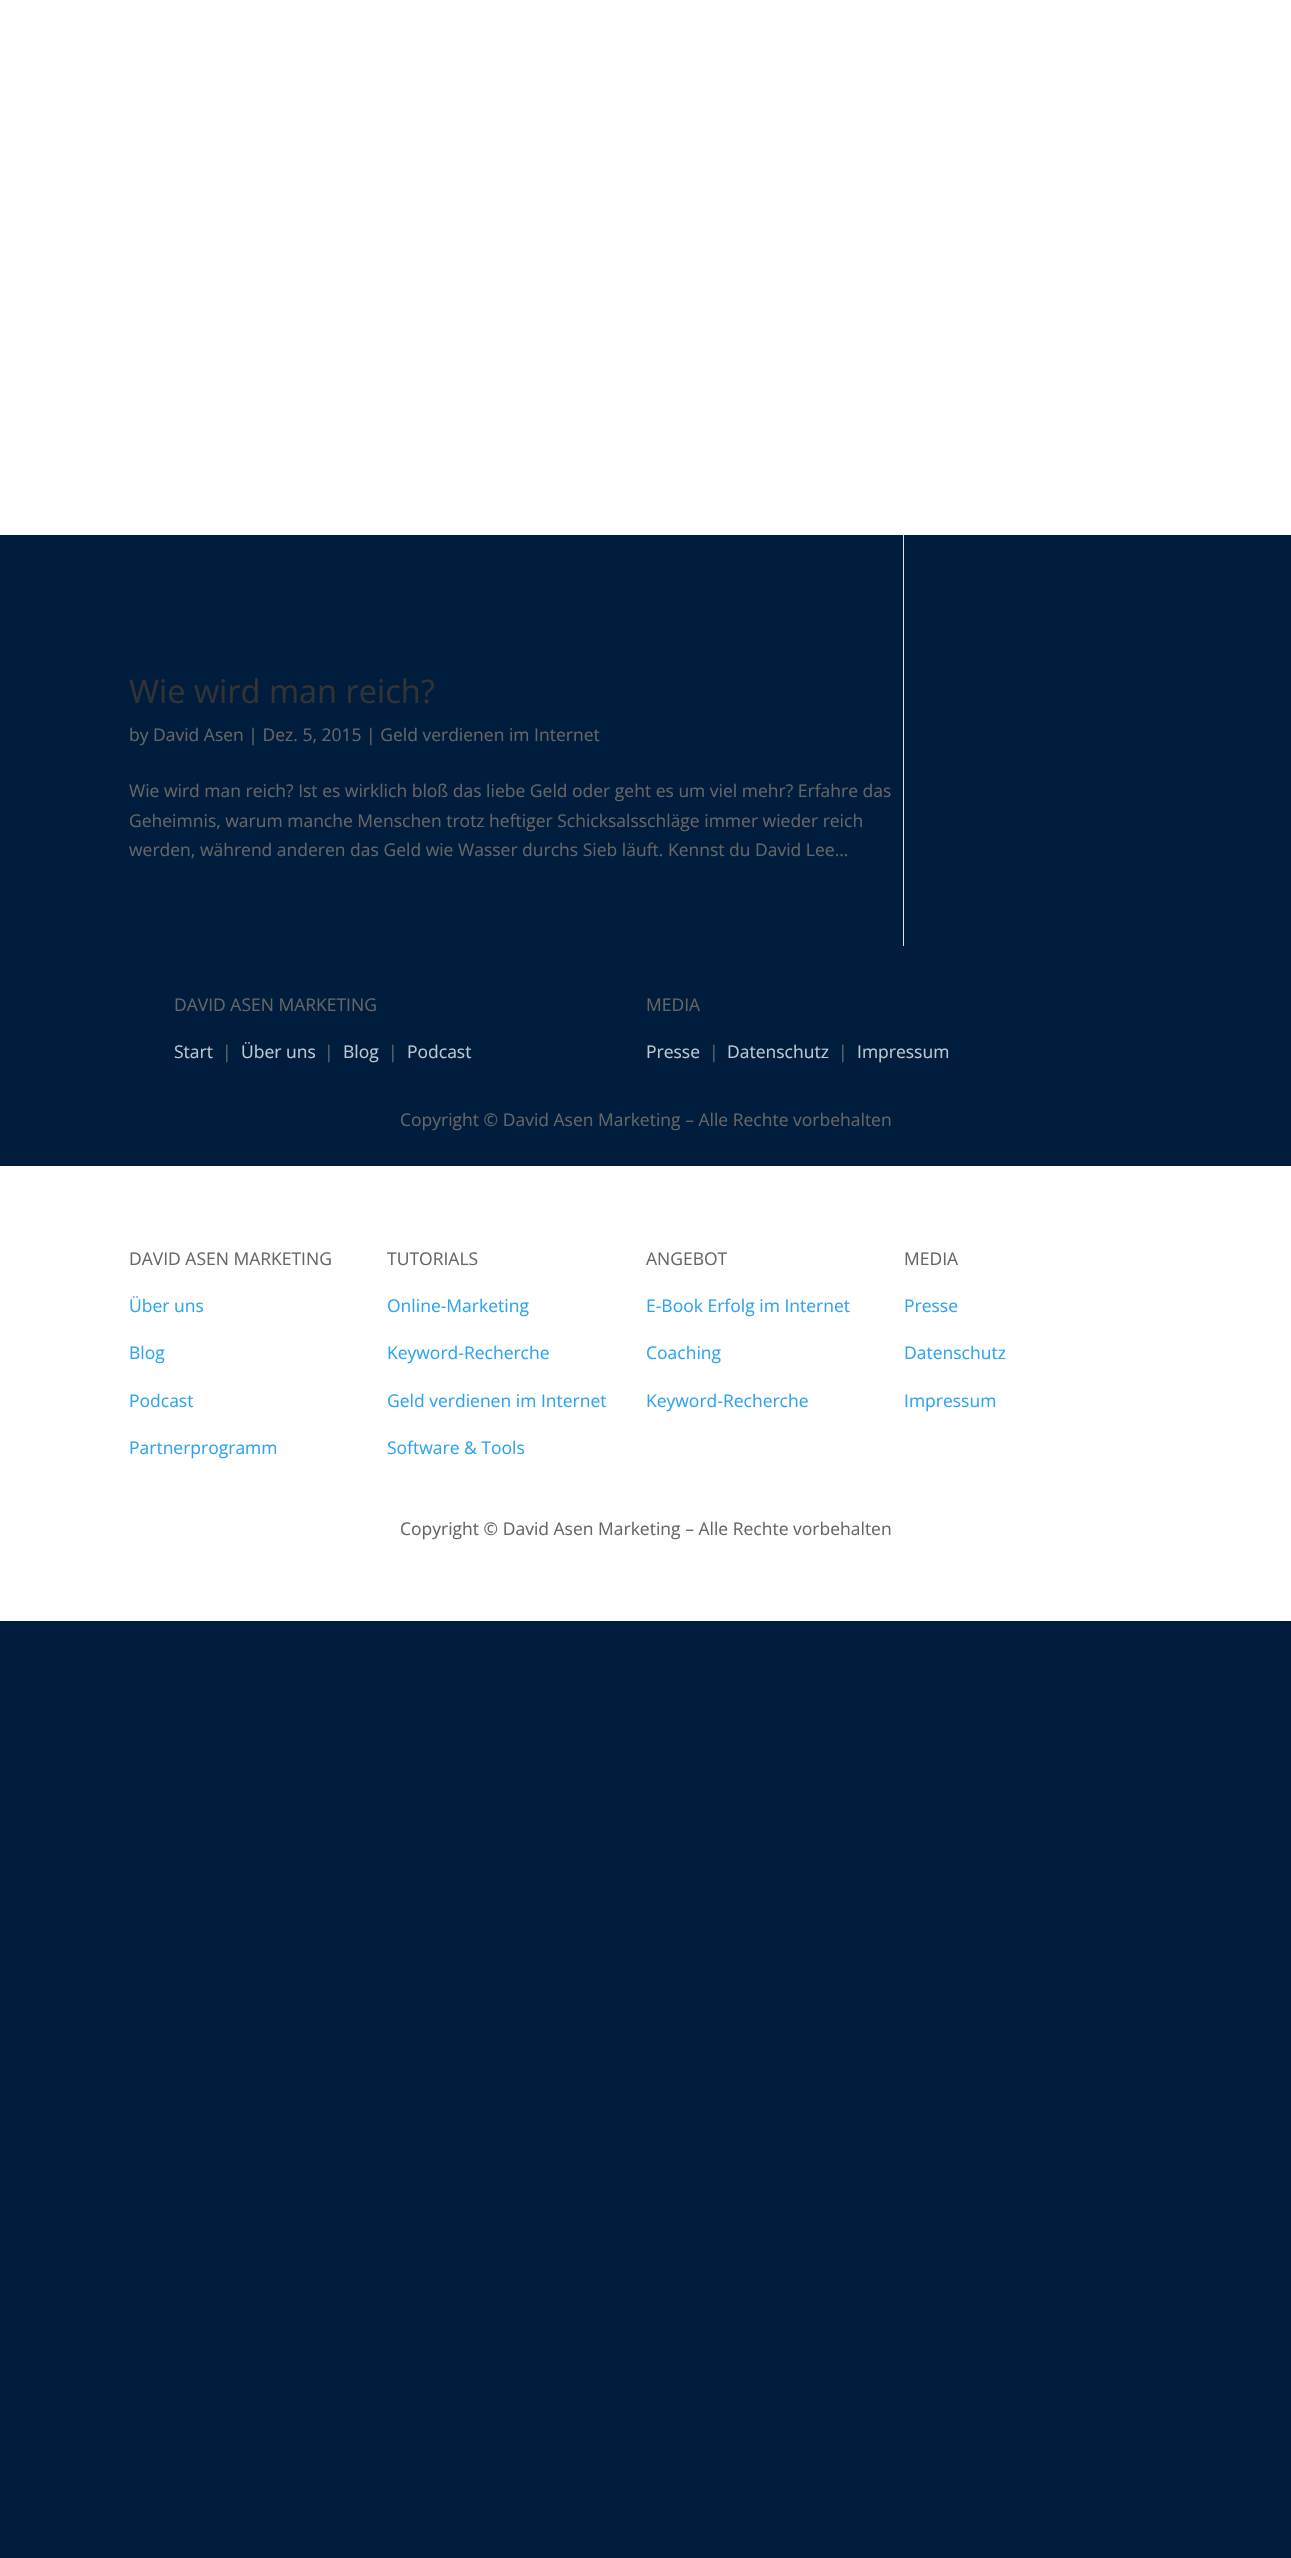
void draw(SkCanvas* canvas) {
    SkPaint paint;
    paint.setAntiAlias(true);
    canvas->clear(0xFF001D3E);
    paint.setColor(0xFFFFFFFF);
    canvas->drawRect(SkRect::MakeXYWH(0, 0, 1291, 535), paint);
    SkFont font1(fontMgr->matchFamilyStyle("Open Sans", SkFontStyle::Normal()), 32.5f);
    font1.setSubpixel(true);
    paint.setColor(0xFF333333);
    canvas->drawString("Wie wird man reich?", 129, 703, font1, paint);
    SkFont font2(fontMgr->matchFamilyStyle("Open Sans", SkFontStyle::Normal()), 17.5f);
    font2.setSubpixel(true);
    paint.setColor(0xFF666666);
    canvas->drawString("by David Asen | Dez. 5, 2015 | Geld verdienen im Internet", 129, 741, font2, paint);
    canvas->drawString("Wie wird man reich? Ist es wirklich bloß das liebe Geld oder geht es um viel mehr? Erfahre das", 129, 797, font2, paint);
    canvas->drawString("Geheimnis, warum manche Menschen trotz heftiger Schicksalsschläge immer wieder reich", 129, 827, font2, paint);
    canvas->drawString("werden, während anderen das Geld wie Wasser durchs Sieb läuft. Kennst du David Lee...", 129, 856, font2, paint);
    paint.setColor(0xFFE2E2E2);
    canvas->drawRect(SkRect::MakeXYWH(903, 535, 1, 411), paint);
    paint.setColor(0xFF666666);
    canvas->drawString("DAVID ASEN MARKETING", 174, 1011, font2, paint);
    paint.setColor(0xFFBFC7CF);
    canvas->drawString("Start", 174, 1058, font2, paint);
    paint.setColor(0xFF666666);
    canvas->drawString("|", 222, 1058, font2, paint);
    paint.setColor(0xFFBFC7CF);
    canvas->drawString("Über uns", 241, 1058, font2, paint);
    paint.setColor(0xFF666666);
    canvas->drawString("|", 324, 1058, font2, paint);
    paint.setColor(0xFFBFC7CF);
    canvas->drawString("Blog", 343, 1058, font2, paint);
    paint.setColor(0xFF666666);
    canvas->drawString("|", 388, 1058, font2, paint);
    paint.setColor(0xFFBFC7CF);
    canvas->drawString("Podcast", 407, 1058, font2, paint);
    paint.setColor(0xFF666666);
    canvas->drawString("MEDIA", 646, 1011, font2, paint);
    paint.setColor(0xFFBFC7CF);
    canvas->drawString("Presse", 646, 1058, font2, paint);
    paint.setColor(0xFF666666);
    canvas->drawString("|", 709, 1058, font2, paint);
    paint.setColor(0xFFBFC7CF);
    canvas->drawString("Datenschutz", 727, 1058, font2, paint);
    paint.setColor(0xFF666666);
    canvas->drawString("|", 838, 1058, font2, paint);
    paint.setColor(0xFFBFC7CF);
    canvas->drawString("Impressum", 857, 1058, font2, paint);
    paint.setColor(0xFF666666);
    canvas->drawString("Copyright © David Asen Marketing – Alle Rechte vorbehalten", 400, 1126, font2, paint);
    paint.setColor(0xFFFFFFFF);
    canvas->drawRect(SkRect::MakeXYWH(0, 1166, 1291, 455), paint);
    paint.setColor(0xFF666666);
    canvas->drawString("DAVID ASEN MARKETING", 129, 1265, font2, paint);
    paint.setColor(0xFF2EA3F2);
    canvas->drawString("Über uns", 129, 1312, font2, paint);
    canvas->drawString("Blog", 129, 1359, font2, paint);
    canvas->drawString("Podcast", 129, 1407, font2, paint);
    canvas->drawString("Partnerprogramm", 129, 1454, font2, paint);
    paint.setColor(0xFF666666);
    canvas->drawString("TUTORIALS", 387, 1265, font2, paint);
    paint.setColor(0xFF2EA3F2);
    canvas->drawString("Online-Marketing", 387, 1312, font2, paint);
    canvas->drawString("Keyword-Recherche", 387, 1359, font2, paint);
    canvas->drawString("Geld verdienen im Internet", 387, 1407, font2, paint);
    canvas->drawString("Software & Tools", 387, 1454, font2, paint);
    paint.setColor(0xFF666666);
    canvas->drawString("ANGEBOT", 646, 1265, font2, paint);
    paint.setColor(0xFF2EA3F2);
    canvas->drawString("E-Book Erfolg im Internet", 646, 1312, font2, paint);
    canvas->drawString("Coaching", 646, 1359, font2, paint);
    canvas->drawString("Keyword-Recherche", 646, 1407, font2, paint);
    paint.setColor(0xFF666666);
    canvas->drawString("MEDIA", 904, 1265, font2, paint);
    paint.setColor(0xFF2EA3F2);
    canvas->drawString("Presse", 904, 1312, font2, paint);
    canvas->drawString("Datenschutz", 904, 1359, font2, paint);
    canvas->drawString("Impressum", 904, 1407, font2, paint);
    paint.setColor(0xFF666666);
    canvas->drawString("Copyright © David Asen Marketing – Alle Rechte vorbehalten", 400, 1535, font2, paint);
}
